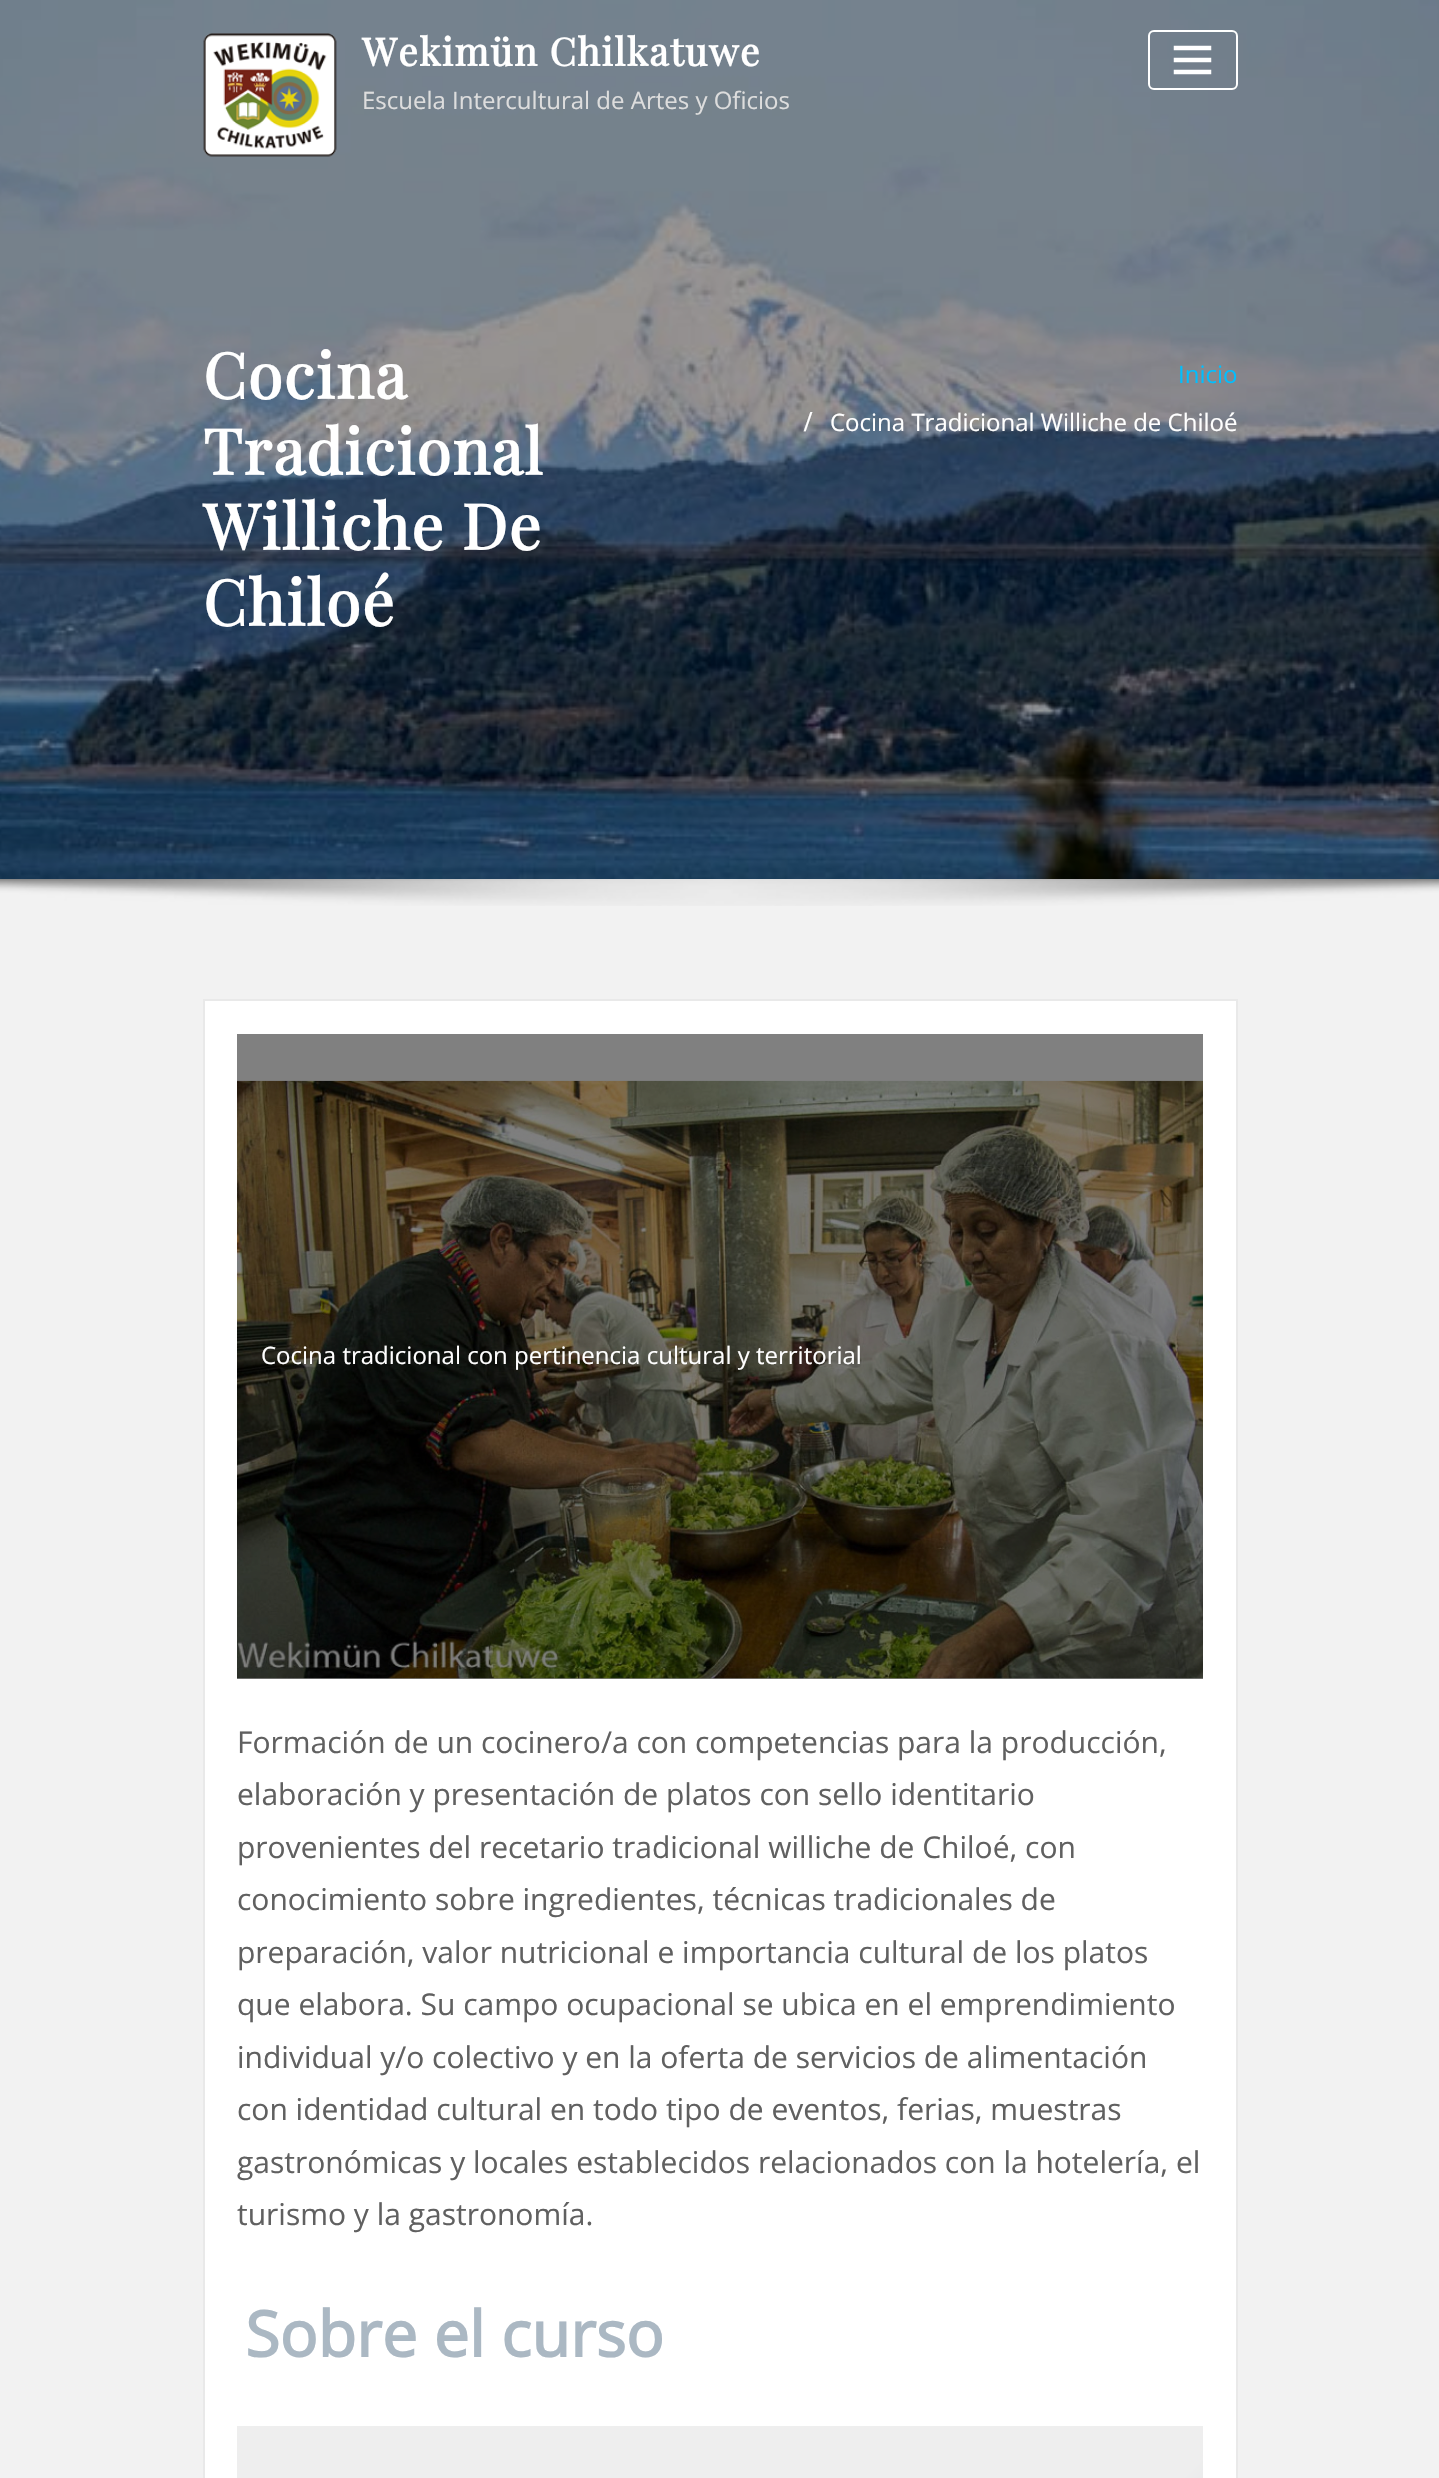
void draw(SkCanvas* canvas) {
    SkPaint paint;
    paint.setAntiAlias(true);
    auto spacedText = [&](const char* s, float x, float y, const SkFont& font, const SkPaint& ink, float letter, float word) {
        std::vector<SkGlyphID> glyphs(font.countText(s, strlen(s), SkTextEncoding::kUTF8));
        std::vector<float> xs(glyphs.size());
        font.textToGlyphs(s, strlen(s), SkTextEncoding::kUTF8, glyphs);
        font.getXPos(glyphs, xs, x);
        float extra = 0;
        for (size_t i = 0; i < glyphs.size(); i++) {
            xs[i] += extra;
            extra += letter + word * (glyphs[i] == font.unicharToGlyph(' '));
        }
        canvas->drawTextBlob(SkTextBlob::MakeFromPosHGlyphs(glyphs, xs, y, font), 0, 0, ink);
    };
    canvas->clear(0xFFFFFFFF);
    canvas->drawImageRect(SkImages::DeferredFromEncodedData(SkData::MakeFromFileName("img2.png")), SkRect::MakeXYWH(0, 0, 1439, 879), SkSamplingOptions());
    canvas->drawImageRect(SkImages::DeferredFromEncodedData(SkData::MakeFromFileName("img1.png")), SkRect::MakeXYWH(203, 33, 134, 124), SkSamplingOptions());
    SkFont font1(fontMgr->matchFamilyStyle("Playfair Display", SkFontStyle::Bold()), 38.4f);
    font1.setSubpixel(true);
    paint.setColor(0xFFFFFFFF);
    spacedText("Wekimün Chilkatuwe", 362, 66, font1, paint, 1.5f, 0);
    SkFont font2(fontMgr->matchFamilyStyle("Open Sans", SkFontStyle::Normal()), 24);
    font2.setSubpixel(true);
    paint.setColor(0xFFDDDDDD);
    canvas->drawString("Escuela Intercultural de Artes y Oficios", 362, 109, font2, paint);
    paint.setStyle(SkPaint::kStroke_Style);
    paint.setStrokeWidth(2);
    paint.setColor(0xFFFFFFFF);
    canvas->drawRoundRect(SkRect::MakeXYWH(1149, 31, 88, 58), 5, 5, paint);
    paint.setStrokeWidth(4.5f);
    paint.setStrokeCap(SkPaint::kSquare_Cap);
    canvas->drawPath(SkPathBuilder().moveTo(1176, 48).lineTo(1209, 48).moveTo(1176, 60).lineTo(1209, 60).moveTo(1176, 72).lineTo(1209, 72).detach(), paint);
    SkFont font3(fontMgr->matchFamilyStyle("Playfair Display", SkFontStyle::Bold()), 63);
    font3.setSubpixel(true);
    paint.setStyle(SkPaint::kFill_Style);
    spacedText("Cocina", 203, 399, font3, paint, 1.5f, 0);
    spacedText("Tradicional", 203, 475, font3, paint, 1.5f, 0);
    spacedText("Williche De", 203, 550, font3, paint, 1.5f, 0);
    spacedText("Chiloé", 203, 626, font3, paint, 1.5f, 0);
    paint.setColor(0xFF00BFFF);
    canvas->drawString("Inicio", 1178, 383, font2, paint);
    SkFont font4(fontMgr->matchFamilyStyle("Liberation Serif", SkFontStyle::Bold()), 29);
    font4.setSubpixel(true);
    paint.setColor(0xFFFFFFFF);
    spacedText("/", 804, 431, font4, paint, 2, 0);
    canvas->drawString("Cocina Tradicional Williche de Chiloé", 830, 431, font2, paint);
    paint.setColor(0xFFF2F2F2);
    canvas->drawRect(SkRect::MakeXYWH(0, 879, 1439, 1599), paint);
    canvas->drawImageRect(SkImages::DeferredFromEncodedData(SkData::MakeFromFileName("img3.png")), SkRect::MakeXYWH(0, 879, 1439, 27), SkSamplingOptions());
    paint.setColor(0xFFFFFFFF);
    canvas->drawRect(SkRect::MakeXYWH(205, 1001, 1031, 1477), paint);
    paint.setColor(0xFF808080);
    canvas->drawRect(SkRect::MakeXYWH(237, 1034, 966, 645), paint);
    paint.setStyle(SkPaint::kStroke_Style);
    paint.setStrokeWidth(2);
    paint.setStrokeCap(SkPaint::kButt_Cap);
    paint.setColor(0xFFE9E9E9);
    canvas->drawRect(SkRect::MakeXYWH(204, 1000, 1033, 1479), paint);
    canvas->drawImageRect(SkImages::DeferredFromEncodedData(SkData::MakeFromFileName("img4.png")), SkRect::MakeXYWH(237, 1080, 966, 599), SkSamplingOptions());
    paint.setStyle(SkPaint::kFill_Style);
    paint.setColor(0xFFFFFFFF);
    canvas->drawString("Cocina tradicional con pertinencia cultural y territorial", 261, 1364, font2, paint);
    SkFont font5(fontMgr->matchFamilyStyle("Open Sans", SkFontStyle::Normal()), 30);
    font5.setSubpixel(true);
    paint.setColor(0xFF606060);
    canvas->drawString("Formación de un cocinero/a con competencias para la producción,", 237, 1753, font5, paint);
    canvas->drawString("elaboración y presentación de platos con sello identitario", 237, 1805, font5, paint);
    canvas->drawString("provenientes del recetario tradicional williche de Chiloé, con", 237, 1858, font5, paint);
    canvas->drawString("conocimiento sobre ingredientes, técnicas tradicionales de", 237, 1910, font5, paint);
    canvas->drawString("preparación, valor nutricional e importancia cultural de los platos", 237, 1963, font5, paint);
    canvas->drawString("que elabora. Su campo ocupacional se ubica en el emprendimiento", 237, 2015, font5, paint);
    canvas->drawString("individual y/o colectivo y en la oferta de servicios de alimentación", 237, 2068, font5, paint);
    canvas->drawString("con identidad cultural en todo tipo de eventos, ferias, muestras", 237, 2120, font5, paint);
    canvas->drawString("gastronómicas y locales establecidos relacionados con la hotelería, el", 237, 2173, font5, paint);
    canvas->drawString("turismo y la gastronomía.", 237, 2225, font5, paint);
    SkFont font6(fontMgr->matchFamilyStyle("Open Sans", SkFontStyle::Bold()), 63);
    font6.setSubpixel(true);
    paint.setColor(0xFFABB8C3);
    canvas->drawString("Sobre el curso", 245, 2357, font6, paint);
    {
        const SkColor colors[] = {0xFFEEEEEE, 0xFFA9B8C3};
        const float stops[] = {0.71f, 1};
        const SkPoint ends[] = {{369, 2294}, {1071, 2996}};
        paint.setShader(SkGradientShader::MakeLinear(ends, colors, stops, 2, SkTileMode::kClamp));
        paint.setAlpha(255);
    }
    canvas->drawRect(SkRect::MakeXYWH(237, 2426, 966, 52), paint);
}
